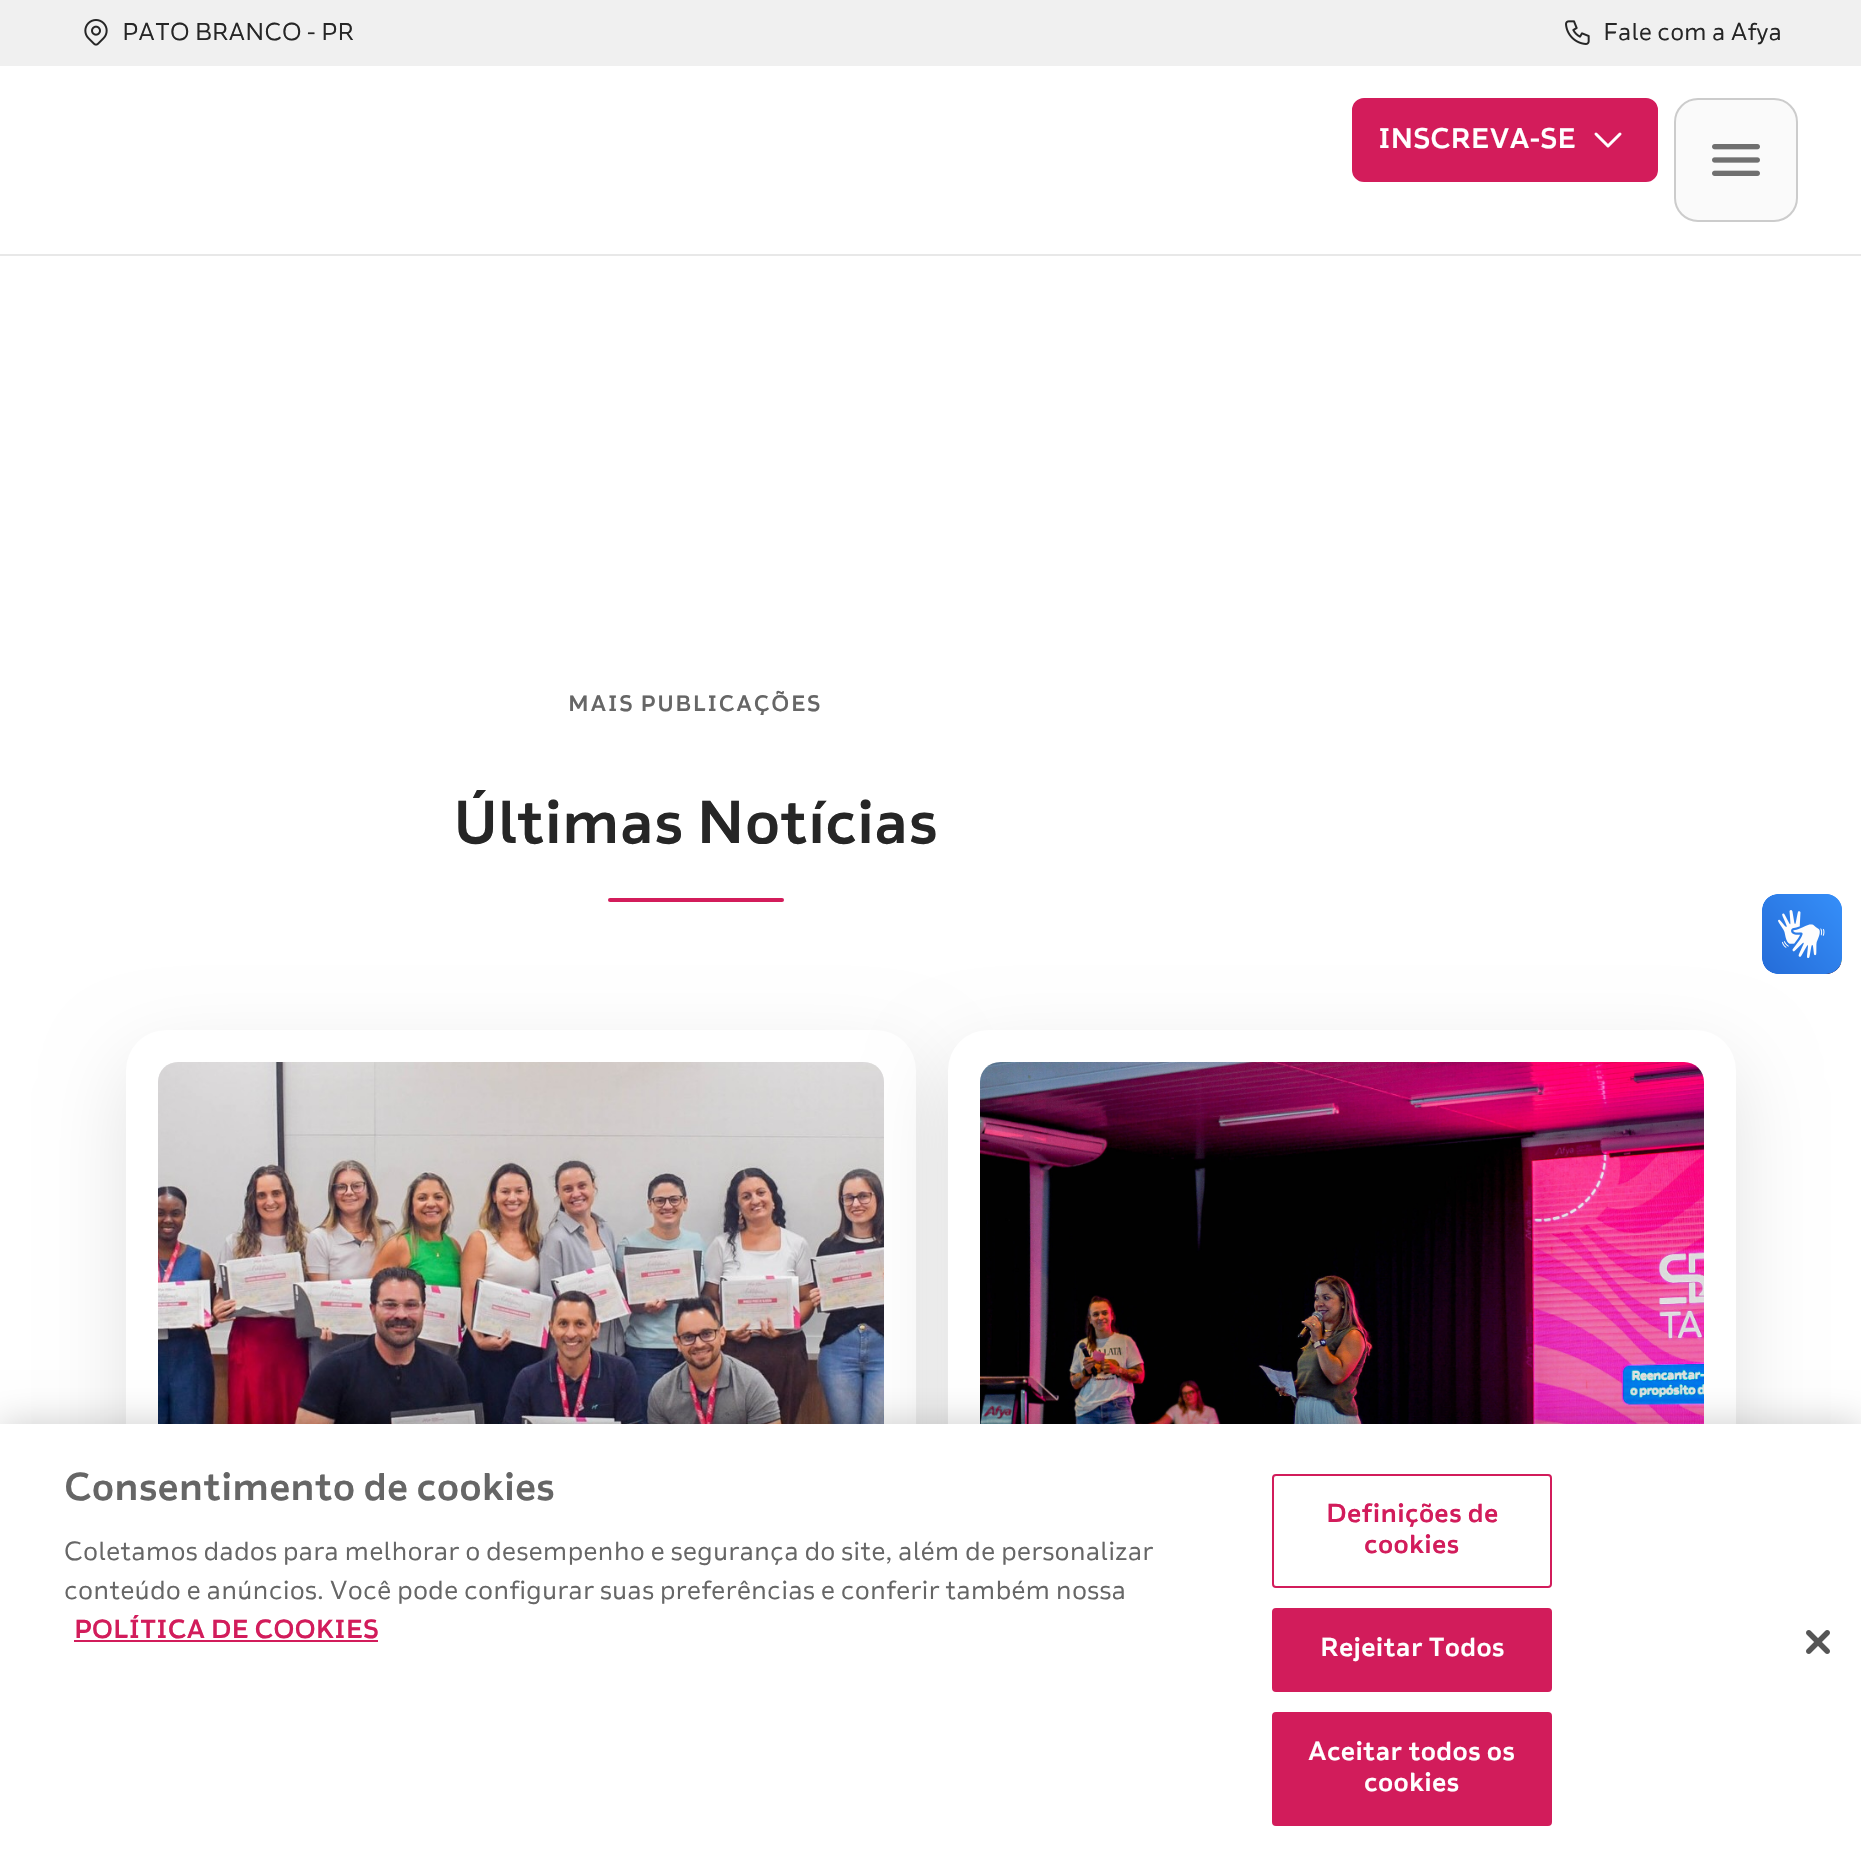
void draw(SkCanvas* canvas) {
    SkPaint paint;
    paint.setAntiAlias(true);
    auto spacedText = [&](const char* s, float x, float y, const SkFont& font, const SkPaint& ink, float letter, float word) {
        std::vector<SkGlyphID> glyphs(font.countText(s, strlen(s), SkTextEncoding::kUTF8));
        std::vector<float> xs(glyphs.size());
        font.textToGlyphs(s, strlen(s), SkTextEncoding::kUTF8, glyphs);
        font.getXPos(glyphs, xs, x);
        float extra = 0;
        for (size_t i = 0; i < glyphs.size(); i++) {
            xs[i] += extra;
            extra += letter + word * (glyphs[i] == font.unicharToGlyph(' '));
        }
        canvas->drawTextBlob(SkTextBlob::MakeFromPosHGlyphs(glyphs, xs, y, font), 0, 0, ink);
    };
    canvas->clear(0xFFFFFFFF);
    paint.setColor(0xFFF0F0F0);
    canvas->drawRect(SkRect::MakeXYWH(0, 0, 1861, 66), paint);
    canvas->drawImageRect(SkImages::DeferredFromEncodedData(SkData::MakeFromFileName("img1.png")), SkRect::MakeXYWH(84, 19, 24, 27), SkSamplingOptions());
    SkFont font1(fontMgr->matchFamilyStyle("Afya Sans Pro", SkFontStyle::Normal()), 24);
    font1.setSubpixel(true);
    paint.setColor(0xFF262626);
    canvas->drawString("PATO BRANCO - PR", 122, 40, font1, paint);
    canvas->drawImageRect(SkImages::DeferredFromEncodedData(SkData::MakeFromFileName("img2.png")), SkRect::MakeXYWH(1565, 20, 25, 25), SkSamplingOptions());
    canvas->drawString("Fale com a Afya", 1603, 40, font1, paint);
    paint.setColor(0xFFE8E8E8);
    canvas->drawRect(SkRect::MakeXYWH(0, 254, 1861, 2), paint);
    paint.setColor(0xFFD31C5B);
    canvas->drawRoundRect(SkRect::MakeXYWH(1353, 99, 304, 82), 11, 11, paint);
    paint.setStyle(SkPaint::kStroke_Style);
    paint.setStrokeWidth(2);
    canvas->drawRoundRect(SkRect::MakeXYWH(1353, 99, 304, 82), 11, 11, paint);
    SkFont font2(fontMgr->matchFamilyStyle("Afya Sans Pro", SkFontStyle::Bold()), 28);
    font2.setSubpixel(true);
    paint.setStyle(SkPaint::kFill_Style);
    paint.setColor(0xFFFFFFFF);
    canvas->drawString("INSCREVA-SE", 1378, 148, font2, paint);
    paint.setStyle(SkPaint::kStroke_Style);
    paint.setStrokeWidth(3);
    paint.setStrokeCap(SkPaint::kRound_Cap);
    paint.setStrokeJoin(SkPaint::kRound_Join);
    canvas->drawPath(SkPathBuilder().moveTo(1596, 134).lineTo(1608, 146).lineTo(1620, 134).detach(), paint);
    paint.setStyle(SkPaint::kFill_Style);
    paint.setColor(0xFFFAFAFA);
    canvas->drawRoundRect(SkRect::MakeXYWH(1675, 99, 122, 122), 23, 23, paint);
    paint.setStyle(SkPaint::kStroke_Style);
    paint.setStrokeWidth(2);
    paint.setStrokeCap(SkPaint::kButt_Cap);
    paint.setStrokeJoin(SkPaint::kMiter_Join);
    paint.setColor(0xFFCCCCCC);
    canvas->drawRoundRect(SkRect::MakeXYWH(1675, 99, 122, 122), 23, 23, paint);
    canvas->drawImageRect(SkImages::DeferredFromEncodedData(SkData::MakeFromFileName("img3.png")), SkRect::MakeXYWH(1712, 144, 48, 32), SkSamplingOptions());
    SkFont font3(fontMgr->matchFamilyStyle("Afya Sans Pro", SkFontStyle::Bold()), 22);
    font3.setSubpixel(true);
    paint.setStyle(SkPaint::kFill_Style);
    paint.setColor(0xFF666666);
    spacedText("MAIS PUBLICAÇÕES", 568, 711, font3, paint, 1.6f, 0);
    SkFont font4(fontMgr->matchFamilyStyle("Afya Sans Pro", SkFontStyle::Bold()), 60);
    font4.setSubpixel(true);
    paint.setColor(0xFF262626);
    canvas->drawString("Últimas Notícias", 453, 843, font4, paint);
    paint.setColor(0xFFD31C5B);
    canvas->drawRoundRect(SkRect::MakeXYWH(608, 898, 176, 4), 2, 2, paint);
    paint.setColor(0x1C000000);
    paint.setMaskFilter(SkMaskFilter::MakeBlur(kNormal_SkBlurStyle, 40));
    canvas->drawRoundRect(SkRect::MakeXYWH(126, 1060, 790, 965), 40, 40, paint);
    paint.setMaskFilter(nullptr);
    paint.setColor(0xFFFFFFFF);
    canvas->drawRoundRect(SkRect::MakeXYWH(126, 1030, 790, 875), 40, 40, paint);
    paint.setColor(0x1C000000);
    paint.setMaskFilter(SkMaskFilter::MakeBlur(kNormal_SkBlurStyle, 40));
    canvas->drawRoundRect(SkRect::MakeXYWH(948, 1060, 788, 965), 40, 40, paint);
    paint.setMaskFilter(nullptr);
    paint.setColor(0xFFF5F5F5);
    canvas->drawRoundRect(SkRect::MakeXYWH(158, 1062, 726, 576), 20, 20, paint);
    canvas->drawImageRect(SkImages::DeferredFromEncodedData(SkData::MakeFromFileName("img4.png")), SkRect::MakeXYWH(158, 1062, 726, 362), SkSamplingOptions());
    paint.setColor(0xFFFFFFFF);
    canvas->drawRoundRect(SkRect::MakeXYWH(948, 1030, 788, 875), 40, 40, paint);
    paint.setColor(0xFFF5F5F5);
    canvas->drawRoundRect(SkRect::MakeXYWH(980, 1062, 724, 576), 20, 20, paint);
    canvas->drawImageRect(SkImages::DeferredFromEncodedData(SkData::MakeFromFileName("img5.png")), SkRect::MakeXYWH(980, 1062, 724, 362), SkSamplingOptions());
    canvas->drawImageRect(SkImages::DeferredFromEncodedData(SkData::MakeFromFileName("img6.png")), SkRect::MakeXYWH(1762, 894, 80, 80), SkSamplingOptions());
    canvas->drawImageRect(SkImages::DeferredFromEncodedData(SkData::MakeFromFileName("img7.png")), SkRect::MakeXYWH(1762, 894, 80, 80), SkSamplingOptions());
    paint.setColor(0x33000000);
    paint.setMaskFilter(SkMaskFilter::MakeBlur(kNormal_SkBlurStyle, 18));
    canvas->drawRect(SkRect::MakeXYWH(0, 1424, 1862, 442), paint);
    paint.setMaskFilter(nullptr);
    paint.setColor(0xFFFFFFFF);
    canvas->drawRect(SkRect::MakeXYWH(0, 1424, 1861, 441), paint);
    SkFont font5(fontMgr->matchFamilyStyle("Afya Sans Pro", SkFontStyle::Bold()), 38.4f);
    font5.setSubpixel(true);
    paint.setColor(0xFF666666);
    canvas->drawString("Consentimento de cookies", 64, 1500, font5, paint);
    SkFont font6(fontMgr->matchFamilyStyle("Afya Sans Pro", SkFontStyle::Normal()), 26);
    font6.setSubpixel(true);
    canvas->drawString("Coletamos dados para melhorar o desempenho e segurança do site, além de personalizar", 64, 1560, font6, paint);
    canvas->drawString("conteúdo e anúncios. Você pode configurar suas preferências e conferir também nossa", 64, 1599, font6, paint);
    SkFont font7(fontMgr->matchFamilyStyle("Afya Sans Pro", SkFontStyle::Bold()), 26);
    font7.setSubpixel(true);
    paint.setColor(0xFFD21C5B);
    canvas->drawString("POLÍTICA DE COOKIES", 74, 1638, font7, paint);
    canvas->drawRect(SkRect::MakeXYWH(74, 1640, 304, 2), paint);
    paint.setStyle(SkPaint::kStroke_Style);
    canvas->drawRoundRect(SkRect::MakeXYWH(1273, 1475, 278, 112), 3, 3, paint);
    paint.setStyle(SkPaint::kFill_Style);
    spacedText("Definições de", 1326, 1522, font7, paint, 0.25f, 0);
    spacedText("cookies", 1364, 1553, font7, paint, 0.25f, 0);
    canvas->drawRoundRect(SkRect::MakeXYWH(1273, 1609, 278, 82), 3, 3, paint);
    paint.setStyle(SkPaint::kStroke_Style);
    canvas->drawRoundRect(SkRect::MakeXYWH(1273, 1609, 278, 82), 3, 3, paint);
    paint.setStyle(SkPaint::kFill_Style);
    paint.setColor(0xFFFFFFFF);
    spacedText("Rejeitar Todos", 1320, 1656, font7, paint, 0.25f, 0);
    paint.setColor(0xFFD21C5B);
    canvas->drawRoundRect(SkRect::MakeXYWH(1273, 1713, 278, 112), 3, 3, paint);
    paint.setStyle(SkPaint::kStroke_Style);
    canvas->drawRoundRect(SkRect::MakeXYWH(1273, 1713, 278, 112), 3, 3, paint);
    paint.setStyle(SkPaint::kFill_Style);
    paint.setColor(0xFFFFFFFF);
    spacedText("Aceitar todos os", 1308, 1760, font7, paint, 0.25f, 0);
    spacedText("cookies", 1364, 1791, font7, paint, 0.25f, 0);
    canvas->drawImageRect(SkImages::DeferredFromEncodedData(SkData::MakeFromFileName("img8.png")), SkRect::MakeXYWH(1806, 1630, 24, 24), SkSamplingOptions());
}
